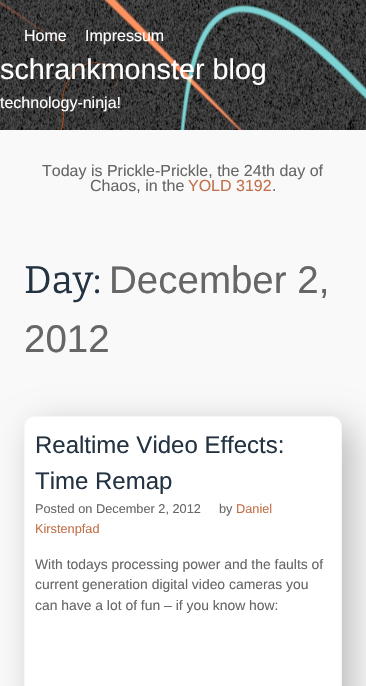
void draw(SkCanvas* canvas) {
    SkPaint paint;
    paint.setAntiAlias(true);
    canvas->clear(0xFFF9F9F9);
    canvas->drawImageRect(SkImages::DeferredFromEncodedData(SkData::MakeFromFileName("img1.png")), SkRect::MakeXYWH(0, 0, 366, 130), SkSamplingOptions());
    canvas->drawImageRect(SkImages::DeferredFromEncodedData(SkData::MakeFromFileName("img2.png")), SkRect::MakeXYWH(61, 62, 57, 68), SkSamplingOptions());
    SkFont font1(fontMgr->matchFamilyStyle("Liberation Sans", SkFontStyle::Normal()), 16);
    font1.setSubpixel(true);
    paint.setColor(0xFFFFFFFF);
    canvas->drawString("Home", 24, 41, font1, paint);
    canvas->drawString("Impressum", 85, 41, font1, paint);
    SkFont font2(fontMgr->matchFamilyStyle("Liberation Sans", SkFontStyle::Normal()), 28.75f);
    font2.setSubpixel(true);
    canvas->drawString("schrankmonster blog", 0, 79, font2, paint);
    canvas->drawString("technology-ninja!", 0, 108, font1, paint);
    paint.setColor(0xFF666666);
    canvas->drawString("Today is Prickle-Prickle, the 24th day of", 42, 176, font1, paint);
    canvas->drawString("Chaos, in the", 90, 191, font1, paint);
    paint.setColor(0xFFC2704A);
    canvas->drawString("YOLD 3192", 188, 191, font1, paint);
    paint.setColor(0xFF666666);
    canvas->drawString(".", 272, 191, font1, paint);
    SkFont font3(fontMgr->matchFamilyStyle("Bitter", SkFontStyle::Normal()), 38.5f);
    font3.setSubpixel(true);
    paint.setColor(0xFF243342);
    canvas->drawString("Day:", 24, 293, font3, paint);
    SkFont font4(fontMgr->matchFamilyStyle("Liberation Sans", SkFontStyle::Normal()), 38.5f);
    font4.setSubpixel(true);
    paint.setColor(0xFF666666);
    canvas->drawString("December 2,", 109, 293, font4, paint);
    canvas->drawString("2012", 24, 352, font4, paint);
    paint.setColor(0xFFBABABA);
    paint.setMaskFilter(SkMaskFilter::MakeBlur(kNormal_SkBlurStyle, 17));
    canvas->drawRoundRect(SkRect::MakeXYWH(34, 426, 318, 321), 10, 10, paint);
    paint.setMaskFilter(nullptr);
    paint.setColor(0xFFFFFFFF);
    canvas->drawRoundRect(SkRect::MakeXYWH(24.5f, 416.5f, 317, 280), 9.5f, 9.5f, paint);
    paint.setStyle(SkPaint::kStroke_Style);
    paint.setStrokeWidth(1);
    paint.setColor(0xFFF7F7F7);
    canvas->drawRoundRect(SkRect::MakeXYWH(24.5f, 416.5f, 317, 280), 9.5f, 9.5f, paint);
    SkFont font5(fontMgr->matchFamilyStyle("Liberation Sans", SkFontStyle::Normal()), 24);
    font5.setSubpixel(true);
    paint.setStyle(SkPaint::kFill_Style);
    paint.setColor(0xFF243342);
    canvas->drawString("Realtime Video Effects:", 35, 453, font5, paint);
    canvas->drawString("Time Remap", 35, 489, font5, paint);
    SkFont font6(fontMgr->matchFamilyStyle("Liberation Sans", SkFontStyle::Normal()), 12.75f);
    font6.setSubpixel(true);
    paint.setColor(0xFF666666);
    canvas->drawString("Posted on December 2, 2012", 35, 513, font6, paint);
    canvas->drawString("by", 219, 513, font6, paint);
    paint.setColor(0xFFC2704A);
    canvas->drawString("Daniel", 236, 513, font6, paint);
    canvas->drawString("Kirstenpfad", 35, 533, font6, paint);
    SkFont font7(fontMgr->matchFamilyStyle("Liberation Sans", SkFontStyle::Normal()), 13.9f);
    font7.setSubpixel(true);
    paint.setColor(0xFF666666);
    canvas->drawString("With todays processing power and the faults of", 35, 569, font7, paint);
    canvas->drawString("current generation digital video cameras you", 35, 589, font7, paint);
    canvas->drawString("can have a lot of fun – if you know how:", 35, 610, font7, paint);
}
